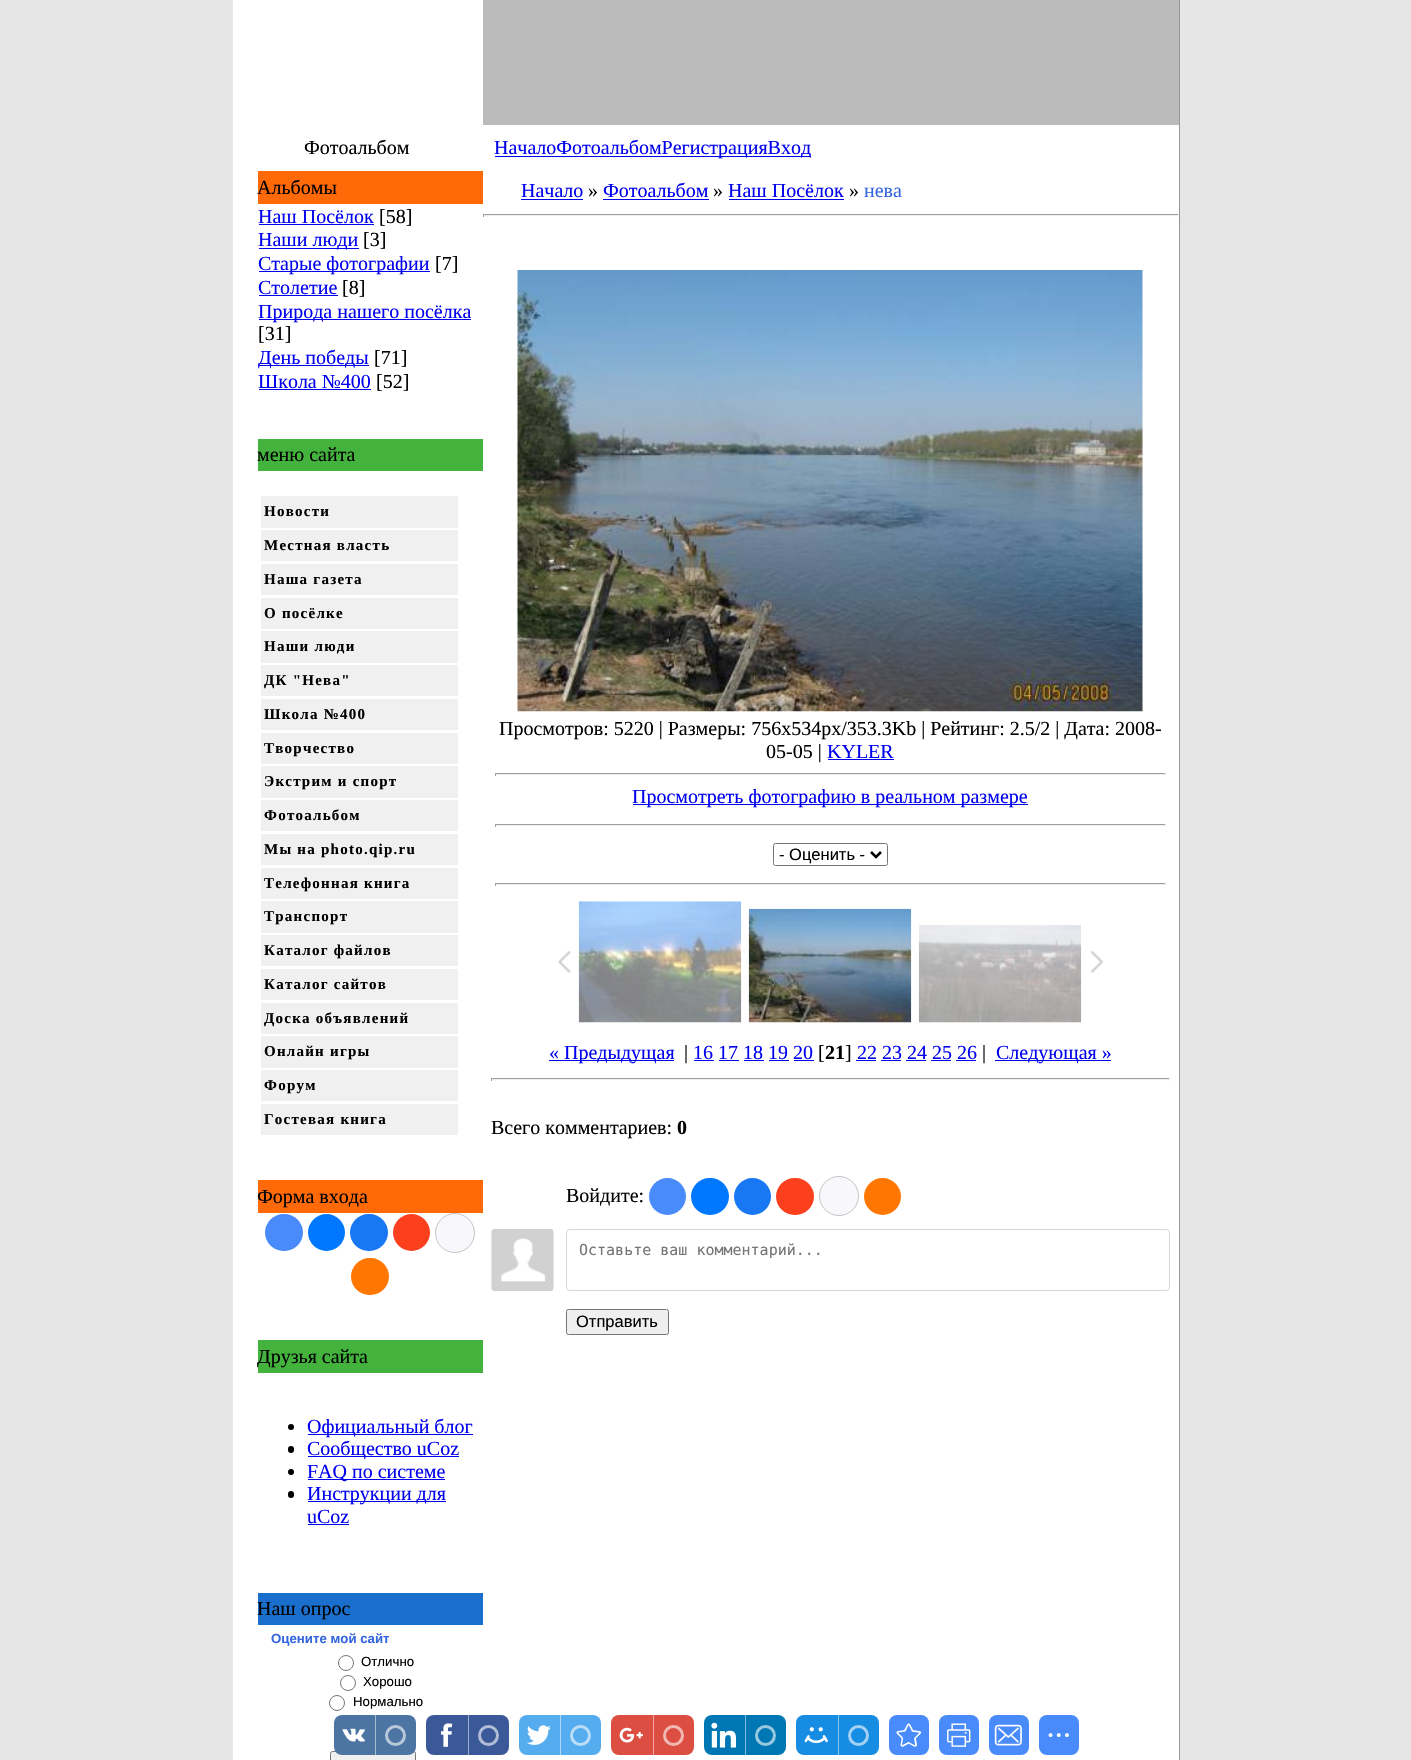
void draw(SkCanvas* canvas) {
    SkPaint paint;
    paint.setAntiAlias(true);
    auto spacedText = [&](const char* s, float x, float y, const SkFont& font, const SkPaint& ink, float letter, float word) {
        std::vector<SkGlyphID> glyphs(font.countText(s, strlen(s), SkTextEncoding::kUTF8));
        std::vector<float> xs(glyphs.size());
        font.textToGlyphs(s, strlen(s), SkTextEncoding::kUTF8, glyphs);
        font.getXPos(glyphs, xs, x);
        float extra = 0;
        for (size_t i = 0; i < glyphs.size(); i++) {
            xs[i] += extra;
            extra += letter + word * (glyphs[i] == font.unicharToGlyph(' '));
        }
        canvas->drawTextBlob(SkTextBlob::MakeFromPosHGlyphs(glyphs, xs, y, font), 0, 0, ink);
    };
    canvas->clear(0xFFE6E6E6);
    paint.setColor(0xFF979797);
    canvas->drawRect(SkRect::MakeXYWH(1179, 0, 1, 1760), paint);
    paint.setColor(0xFFFFFFFF);
    canvas->drawRect(SkRect::MakeXYWH(233, 0, 250, 1760), paint);
    paint.setColor(0xFFBBBBBB);
    canvas->drawRect(SkRect::MakeXYWH(483, 0, 696, 125), paint);
    SkFont font1(fontMgr->matchFamilyStyle("Liberation Serif", SkFontStyle::Normal()), 20);
    font1.setSubpixel(true);
    paint.setColor(0xFF000000);
    canvas->drawString("Фотоальбом", 304, 154, font1, paint);
    paint.setColor(0xFFFFFFFF);
    canvas->drawRect(SkRect::MakeXYWH(483, 125, 696, 1635), paint);
    paint.setColor(0xFF0000EE);
    canvas->drawRect(SkRect::MakeXYWH(495, 156, 316, 1), paint);
    canvas->drawString("НачалоФотоальбомРегистрацияВход", 494, 154, font1, paint);
    paint.setColor(0xFFFF6907);
    canvas->drawRect(SkRect::MakeXYWH(258, 171, 225, 33), paint);
    paint.setColor(0xFF000000);
    canvas->drawString("Альбомы", 257, 194, font1, paint);
    paint.setColor(0xFF0000EE);
    canvas->drawString("Наш Посёлок", 258, 223, font1, paint);
    canvas->drawRect(SkRect::MakeXYWH(259, 224, 115, 1), paint);
    paint.setColor(0xFF000000);
    canvas->drawString("[58]", 379, 223, font1, paint);
    paint.setColor(0xFF0000EE);
    canvas->drawRect(SkRect::MakeXYWH(259, 248, 100, 1), paint);
    canvas->drawString("Наши люди", 258, 246, font1, paint);
    paint.setColor(0xFF000000);
    canvas->drawString("[3]", 363, 246, font1, paint);
    paint.setColor(0xFF0000EE);
    canvas->drawRect(SkRect::MakeXYWH(259, 271, 171, 1), paint);
    canvas->drawString("Старые фотографии", 258, 270, font1, paint);
    paint.setColor(0xFF000000);
    canvas->drawString("[7]", 435, 270, font1, paint);
    paint.setColor(0xFF0000EE);
    canvas->drawString("Столетие", 258, 294, font1, paint);
    canvas->drawRect(SkRect::MakeXYWH(259, 295, 79, 1), paint);
    paint.setColor(0xFF000000);
    canvas->drawString("[8]", 342, 294, font1, paint);
    paint.setColor(0xFF0000EE);
    canvas->drawRect(SkRect::MakeXYWH(259, 319, 212, 1), paint);
    canvas->drawString("Природа нашего посёлка", 258, 318, font1, paint);
    paint.setColor(0xFF000000);
    canvas->drawString("[31]", 258, 340, font1, paint);
    paint.setColor(0xFF0000EE);
    canvas->drawRect(SkRect::MakeXYWH(259, 365, 110, 1), paint);
    canvas->drawString("День победы", 258, 364, font1, paint);
    paint.setColor(0xFF000000);
    canvas->drawString("[71]", 374, 364, font1, paint);
    paint.setColor(0xFF0000EE);
    canvas->drawString("Школа №400", 258, 388, font1, paint);
    canvas->drawRect(SkRect::MakeXYWH(259, 389, 112, 1), paint);
    paint.setColor(0xFF000000);
    canvas->drawString("[52]", 376, 388, font1, paint);
    paint.setColor(0xFF44B33E);
    canvas->drawRect(SkRect::MakeXYWH(258, 439, 225, 32), paint);
    paint.setColor(0xFF000000);
    canvas->drawString("меню сайта", 257, 461, font1, paint);
    paint.setColor(0xFFF0F0F0);
    canvas->drawRect(SkRect::MakeXYWH(261, 496, 197, 32), paint);
    SkFont font2(fontMgr->matchFamilyStyle("Liberation Serif", SkFontStyle::Bold()), 15);
    font2.setSubpixel(true);
    paint.setColor(0xFF000000);
    spacedText("Новости", 264, 516, font2, paint, 1.25f, 0);
    paint.setColor(0xFFF0F0F0);
    canvas->drawRect(SkRect::MakeXYWH(261, 530, 197, 31), paint);
    paint.setColor(0xFF000000);
    spacedText("Местная власть", 264, 550, font2, paint, 1.25f, 0);
    paint.setColor(0xFFF0F0F0);
    canvas->drawRect(SkRect::MakeXYWH(261, 564, 197, 31), paint);
    paint.setColor(0xFF000000);
    spacedText("Наша газета", 264, 584, font2, paint, 1.25f, 0);
    paint.setColor(0xFFF0F0F0);
    canvas->drawRect(SkRect::MakeXYWH(261, 598, 197, 31), paint);
    paint.setColor(0xFF000000);
    spacedText("О посёлке", 264, 618, font2, paint, 1.25f, 0);
    paint.setColor(0xFFF0F0F0);
    canvas->drawRect(SkRect::MakeXYWH(261, 631, 197, 32), paint);
    paint.setColor(0xFF000000);
    spacedText("Наши люди", 264, 651, font2, paint, 1.25f, 0);
    paint.setColor(0xFFF0F0F0);
    canvas->drawRect(SkRect::MakeXYWH(261, 665, 197, 31), paint);
    paint.setColor(0xFF000000);
    spacedText("ДК \"Нева\"", 264, 685, font2, paint, 1.25f, 0);
    paint.setColor(0xFFF0F0F0);
    canvas->drawRect(SkRect::MakeXYWH(261, 699, 197, 31), paint);
    paint.setColor(0xFF000000);
    spacedText("Школа №400", 264, 719, font2, paint, 1.25f, 0);
    paint.setColor(0xFFF0F0F0);
    canvas->drawRect(SkRect::MakeXYWH(261, 733, 197, 31), paint);
    paint.setColor(0xFF000000);
    spacedText("Творчество", 264, 753, font2, paint, 1.25f, 0);
    paint.setColor(0xFFF0F0F0);
    canvas->drawRect(SkRect::MakeXYWH(261, 766, 197, 32), paint);
    paint.setColor(0xFF000000);
    spacedText("Экстрим и спорт", 264, 786, font2, paint, 1.25f, 0);
    paint.setColor(0xFFF0F0F0);
    canvas->drawRect(SkRect::MakeXYWH(261, 800, 197, 31), paint);
    paint.setColor(0xFF000000);
    spacedText("Фотоальбом", 264, 820, font2, paint, 1.25f, 0);
    paint.setColor(0xFFF0F0F0);
    canvas->drawRect(SkRect::MakeXYWH(261, 834, 197, 31), paint);
    paint.setColor(0xFF000000);
    spacedText("Мы на photo.qip.ru", 264, 854, font2, paint, 1.25f, 0);
    paint.setColor(0xFFF0F0F0);
    canvas->drawRect(SkRect::MakeXYWH(261, 868, 197, 31), paint);
    paint.setColor(0xFF000000);
    spacedText("Телефонная книга", 264, 888, font2, paint, 1.25f, 0);
    paint.setColor(0xFFF0F0F0);
    canvas->drawRect(SkRect::MakeXYWH(261, 901, 197, 32), paint);
    paint.setColor(0xFF000000);
    spacedText("Транспорт", 264, 921, font2, paint, 1.25f, 0);
    paint.setColor(0xFFF0F0F0);
    canvas->drawRect(SkRect::MakeXYWH(261, 935, 197, 31), paint);
    paint.setColor(0xFF000000);
    spacedText("Каталог файлов", 264, 955, font2, paint, 1.25f, 0);
    paint.setColor(0xFFF0F0F0);
    canvas->drawRect(SkRect::MakeXYWH(261, 969, 197, 31), paint);
    paint.setColor(0xFF000000);
    spacedText("Каталог сайтов", 264, 989, font2, paint, 1.25f, 0);
    paint.setColor(0xFFF0F0F0);
    canvas->drawRect(SkRect::MakeXYWH(261, 1003, 197, 31), paint);
    paint.setColor(0xFF000000);
    spacedText("Доска объявлений", 264, 1023, font2, paint, 1.25f, 0);
    paint.setColor(0xFFF0F0F0);
    canvas->drawRect(SkRect::MakeXYWH(261, 1036, 197, 32), paint);
    paint.setColor(0xFF000000);
    spacedText("Онлайн игры", 264, 1056, font2, paint, 1.25f, 0);
    paint.setColor(0xFFF0F0F0);
    canvas->drawRect(SkRect::MakeXYWH(261, 1070, 197, 31), paint);
    paint.setColor(0xFF000000);
    spacedText("Форум", 264, 1090, font2, paint, 1.25f, 0);
    paint.setColor(0xFFF0F0F0);
    canvas->drawRect(SkRect::MakeXYWH(261, 1104, 197, 31), paint);
    paint.setColor(0xFF000000);
    spacedText("Гостевая книга", 264, 1124, font2, paint, 1.25f, 0);
    paint.setColor(0xFFFF6907);
    canvas->drawRect(SkRect::MakeXYWH(258, 1180, 225, 33), paint);
    paint.setColor(0xFF000000);
    canvas->drawString("Форма входа", 257, 1203, font1, paint);
    paint.setColor(0xFF498BFA);
    canvas->drawRoundRect(SkRect::MakeXYWH(265, 1214, 38, 37), 18.5f, 18.5f, paint);
    paint.setColor(0xFF0077FF);
    canvas->drawCircle(326.5f, 1232.5f, 18.5f, paint);
    paint.setColor(0xFF1877F2);
    canvas->drawRoundRect(SkRect::MakeXYWH(350, 1214, 38, 37), 18.5f, 18.5f, paint);
    paint.setColor(0xFFFC3F1D);
    canvas->drawCircle(411.5f, 1232.5f, 18.5f, paint);
    paint.setColor(0xFFF8F8FC);
    canvas->drawCircle(455, 1233, 19.5f, paint);
    paint.setStyle(SkPaint::kStroke_Style);
    paint.setStrokeWidth(1);
    paint.setColor(0xFFC4C4C4);
    canvas->drawCircle(455, 1233, 19.5f, paint);
    paint.setStyle(SkPaint::kFill_Style);
    paint.setColor(0xFFFF7700);
    canvas->drawRoundRect(SkRect::MakeXYWH(351, 1258, 38, 37), 18.5f, 18.5f, paint);
    paint.setColor(0xFF44B33E);
    canvas->drawRect(SkRect::MakeXYWH(258, 1340, 225, 33), paint);
    paint.setColor(0xFF000000);
    canvas->drawString("Друзья сайта", 257, 1363, font1, paint);
    canvas->drawCircle(291, 1427, 3, paint);
    paint.setColor(0xFF0000EE);
    canvas->drawRect(SkRect::MakeXYWH(308, 1434, 165, 1), paint);
    canvas->drawString("Официальный блог", 307, 1433, font1, paint);
    paint.setColor(0xFF000000);
    canvas->drawRoundRect(SkRect::MakeXYWH(288, 1446, 6, 7), 3, 3, paint);
    paint.setColor(0xFF0000EE);
    canvas->drawRect(SkRect::MakeXYWH(308, 1456, 151, 1), paint);
    canvas->drawString("Сообщество uCoz", 307, 1455, font1, paint);
    paint.setColor(0xFF000000);
    canvas->drawCircle(291, 1472, 3, paint);
    paint.setColor(0xFF0000EE);
    canvas->drawRect(SkRect::MakeXYWH(308, 1479, 137, 1), paint);
    canvas->drawString("FAQ по системе", 307, 1478, font1, paint);
    paint.setColor(0xFF000000);
    canvas->drawRoundRect(SkRect::MakeXYWH(288, 1491, 6, 7), 3, 3, paint);
    paint.setColor(0xFF0000EE);
    canvas->drawRect(SkRect::MakeXYWH(308, 1501, 138, 1), paint);
    canvas->drawString("Инструкции для", 307, 1500, font1, paint);
    canvas->drawString("uCoz", 307, 1523, font1, paint);
    canvas->drawRect(SkRect::MakeXYWH(308, 1524, 41, 1), paint);
    paint.setColor(0xFF1A6FCD);
    canvas->drawRect(SkRect::MakeXYWH(258, 1593, 225, 32), paint);
    paint.setColor(0xFF000000);
    canvas->drawString("Наш опрос", 257, 1615, font1, paint);
    SkFont font3(fontMgr->matchFamilyStyle("Liberation Sans", SkFontStyle::Bold()), 13.25f);
    font3.setSubpixel(true);
    paint.setColor(0xFF3466DE);
    canvas->drawString("Оцените мой сайт", 271, 1643, font3, paint);
    paint.setStyle(SkPaint::kStroke_Style);
    paint.setColor(0xFF767676);
    canvas->drawCircle(346, 1663, 7.5f, paint);
    SkFont font4(fontMgr->matchFamilyStyle("Liberation Sans", SkFontStyle::Normal()), 13.25f);
    font4.setSubpixel(true);
    paint.setStyle(SkPaint::kFill_Style);
    paint.setColor(0xFF000000);
    canvas->drawString("Отлично", 361, 1666, font4, paint);
    paint.setStyle(SkPaint::kStroke_Style);
    paint.setColor(0xFF767676);
    canvas->drawCircle(348, 1683, 7.5f, paint);
    paint.setStyle(SkPaint::kFill_Style);
    paint.setColor(0xFF000000);
    canvas->drawString("Хорошо", 363, 1686, font4, paint);
    paint.setStyle(SkPaint::kStroke_Style);
    paint.setColor(0xFF767676);
    canvas->drawCircle(337, 1703, 7.5f, paint);
    paint.setStyle(SkPaint::kFill_Style);
    paint.setColor(0xFF000000);
    canvas->drawString("Нормально", 353, 1706, font4, paint);
    paint.setColor(0xFFEFEFEF);
    canvas->drawRoundRect(SkRect::MakeXYWH(330.5f, 1751.5f, 85, 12), 2, 2, paint);
    paint.setStyle(SkPaint::kStroke_Style);
    paint.setColor(0xFF767676);
    canvas->drawRoundRect(SkRect::MakeXYWH(330.5f, 1751.5f, 85, 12), 2, 2, paint);
    paint.setStyle(SkPaint::kFill_Style);
    paint.setColor(0xFF0000EE);
    canvas->drawString("Начало", 521, 197, font1, paint);
    canvas->drawRect(SkRect::MakeXYWH(521, 199, 62, 1), paint);
    paint.setColor(0xFF000000);
    canvas->drawString("»", 588, 197, font1, paint);
    paint.setColor(0xFF0000EE);
    canvas->drawString("Фотоальбом", 603, 197, font1, paint);
    canvas->drawRect(SkRect::MakeXYWH(603, 199, 106, 1), paint);
    paint.setColor(0xFF000000);
    canvas->drawString("»", 713, 197, font1, paint);
    paint.setColor(0xFF0000EE);
    canvas->drawString("Наш Посёлок", 728, 197, font1, paint);
    canvas->drawRect(SkRect::MakeXYWH(729, 199, 115, 1), paint);
    paint.setColor(0xFF000000);
    canvas->drawString("»", 849, 197, font1, paint);
    paint.setColor(0xFF3466DE);
    canvas->drawString("нева", 864, 197, font1, paint);
    paint.setColor(0xFF9F9F9F);
    canvas->drawRect(SkRect::MakeXYWH(483, 214, 696, 1), paint);
    paint.setColor(0xFFEEEEEE);
    canvas->drawRect(SkRect::MakeXYWH(1178, 214, 1, 3), paint);
    canvas->drawRect(SkRect::MakeXYWH(483, 215, 696, 1), paint);
    paint.setColor(0xFF9F9F9F);
    canvas->drawRect(SkRect::MakeXYWH(483, 214, 1, 3), paint);
    canvas->drawImageRect(SkImages::DeferredFromEncodedData(SkData::MakeFromFileName("img1.png")), SkRect::MakeXYWH(517, 270, 626, 442), SkSamplingOptions());
    paint.setColor(0xFF000000);
    canvas->drawString("Просмотров: 5220 | Размеры: 756x534px/353.3Kb | Рейтинг: 2.5/2 | Дата: 2008-", 499, 735, font1, paint);
    canvas->drawString("05-05 |", 766, 758, font1, paint);
    paint.setColor(0xFF0000EE);
    canvas->drawString("KYLER", 827, 758, font1, paint);
    canvas->drawRect(SkRect::MakeXYWH(828, 759, 66, 1), paint);
    paint.setColor(0xFF9F9F9F);
    canvas->drawRect(SkRect::MakeXYWH(495, 773, 671, 1), paint);
    paint.setColor(0xFFEEEEEE);
    canvas->drawRect(SkRect::MakeXYWH(1165, 773, 1, 3), paint);
    canvas->drawRect(SkRect::MakeXYWH(495, 774, 671, 1), paint);
    paint.setColor(0xFF9F9F9F);
    canvas->drawRect(SkRect::MakeXYWH(495, 773, 1, 3), paint);
    paint.setColor(0xFF0000EE);
    canvas->drawRect(SkRect::MakeXYWH(633, 804, 395, 1), paint);
    canvas->drawString("Просмотреть фотографию в реальном размере", 632, 803, font1, paint);
    paint.setColor(0xFF9F9F9F);
    canvas->drawRect(SkRect::MakeXYWH(495, 824, 671, 1), paint);
    paint.setColor(0xFFEEEEEE);
    canvas->drawRect(SkRect::MakeXYWH(1165, 824, 1, 3), paint);
    canvas->drawRect(SkRect::MakeXYWH(495, 825, 671, 1), paint);
    paint.setColor(0xFF9F9F9F);
    canvas->drawRect(SkRect::MakeXYWH(495, 824, 1, 3), paint);
    paint.setStyle(SkPaint::kStroke_Style);
    paint.setColor(0xFF767676);
    canvas->drawRoundRect(SkRect::MakeXYWH(773.5f, 843.5f, 114, 22), 2, 2, paint);
    paint.setStrokeWidth(2.5f);
    paint.setColor(0xFF000000);
    canvas->drawPath(SkPathBuilder().moveTo(871, 852).lineTo(876, 857).lineTo(881, 852).detach(), paint);
    SkFont font5(fontMgr->matchFamilyStyle("Liberation Sans", SkFontStyle::Normal()), 16.5f);
    font5.setSubpixel(true);
    paint.setStyle(SkPaint::kFill_Style);
    canvas->drawString("- Оценить -", 779, 860, font5, paint);
    paint.setColor(0xFF9F9F9F);
    canvas->drawRect(SkRect::MakeXYWH(495, 883, 671, 1), paint);
    paint.setColor(0xFFEEEEEE);
    canvas->drawRect(SkRect::MakeXYWH(1165, 883, 1, 3), paint);
    canvas->drawRect(SkRect::MakeXYWH(495, 884, 671, 1), paint);
    paint.setColor(0xFF9F9F9F);
    canvas->drawRect(SkRect::MakeXYWH(495, 883, 1, 3), paint);
    canvas->drawImageRect(SkImages::DeferredFromEncodedData(SkData::MakeFromFileName("img2.png")), SkRect::MakeXYWH(557, 951, 14, 22), SkSamplingOptions());
    canvas->drawImageRect(SkImages::DeferredFromEncodedData(SkData::MakeFromFileName("img3.png")), SkRect::MakeXYWH(578, 901, 164, 122), SkSamplingOptions());
    canvas->drawImageRect(SkImages::DeferredFromEncodedData(SkData::MakeFromFileName("img4.png")), SkRect::MakeXYWH(748, 908, 164, 115), SkSamplingOptions());
    canvas->drawImageRect(SkImages::DeferredFromEncodedData(SkData::MakeFromFileName("img5.png")), SkRect::MakeXYWH(918, 925, 164, 98), SkSamplingOptions());
    canvas->drawImageRect(SkImages::DeferredFromEncodedData(SkData::MakeFromFileName("img6.png")), SkRect::MakeXYWH(1090, 951, 14, 22), SkSamplingOptions());
    paint.setColor(0xFF0000EE);
    canvas->drawRect(SkRect::MakeXYWH(549, 1060, 125, 1), paint);
    canvas->drawString("« Предыдущая", 549, 1059, font1, paint);
    paint.setColor(0xFF000000);
    canvas->drawString("|", 684, 1059, font1, paint);
    paint.setColor(0xFF0000EE);
    canvas->drawString("16 17 18 19 20", 693, 1059, font1, paint);
    canvas->drawRect(SkRect::MakeXYWH(694, 1060, 20, 1), paint);
    paint.setColor(0xFF000000);
    canvas->drawString("[", 818, 1059, font1, paint);
    SkFont font6(fontMgr->matchFamilyStyle("Liberation Serif", SkFontStyle::Bold()), 20);
    font6.setSubpixel(true);
    canvas->drawString("21", 825, 1059, font6, paint);
    canvas->drawString("]", 845, 1059, font1, paint);
    paint.setColor(0xFF0000EE);
    canvas->drawString("22 23 24 25 26", 857, 1059, font1, paint);
    canvas->drawRect(SkRect::MakeXYWH(856, 1060, 20, 1), paint);
    paint.setColor(0xFF000000);
    canvas->drawString("|", 982, 1059, font1, paint);
    paint.setColor(0xFF0000EE);
    canvas->drawRect(SkRect::MakeXYWH(995, 1060, 116, 1), paint);
    canvas->drawString("Следующая »", 996, 1059, font1, paint);
    canvas->drawRect(SkRect::MakeXYWH(719, 1060, 20, 1), paint);
    canvas->drawRect(SkRect::MakeXYWH(744, 1060, 20, 1), paint);
    canvas->drawRect(SkRect::MakeXYWH(769, 1060, 20, 1), paint);
    canvas->drawRect(SkRect::MakeXYWH(794, 1060, 20, 1), paint);
    canvas->drawRect(SkRect::MakeXYWH(881, 1060, 20, 1), paint);
    canvas->drawRect(SkRect::MakeXYWH(906, 1060, 20, 1), paint);
    canvas->drawRect(SkRect::MakeXYWH(931, 1060, 20, 1), paint);
    canvas->drawRect(SkRect::MakeXYWH(956, 1060, 20, 1), paint);
    paint.setColor(0xFF9F9F9F);
    canvas->drawRect(SkRect::MakeXYWH(491, 1078, 679, 1), paint);
    paint.setColor(0xFFEEEEEE);
    canvas->drawRect(SkRect::MakeXYWH(1169, 1078, 1, 3), paint);
    canvas->drawRect(SkRect::MakeXYWH(491, 1079, 679, 1), paint);
    paint.setColor(0xFF9F9F9F);
    canvas->drawRect(SkRect::MakeXYWH(491, 1078, 1, 3), paint);
    paint.setColor(0xFF000000);
    canvas->drawString("Всего комментариев:", 491, 1134, font1, paint);
    canvas->drawString("0", 677, 1134, font6, paint);
    canvas->drawString("Войдите:", 566, 1202, font1, paint);
    paint.setColor(0xFF498BFA);
    canvas->drawCircle(667.5f, 1196.5f, 18.5f, paint);
    paint.setColor(0xFF0077FF);
    canvas->drawRoundRect(SkRect::MakeXYWH(691, 1178, 38, 37), 18.5f, 18.5f, paint);
    paint.setColor(0xFF1877F2);
    canvas->drawCircle(752.5f, 1196.5f, 18.5f, paint);
    paint.setColor(0xFFFC3F1D);
    canvas->drawRoundRect(SkRect::MakeXYWH(776, 1178, 38, 37), 18.5f, 18.5f, paint);
    paint.setColor(0xFFF8F8FC);
    canvas->drawCircle(839, 1196, 19.5f, paint);
    paint.setStyle(SkPaint::kStroke_Style);
    paint.setStrokeWidth(1);
    paint.setColor(0xFFC4C4C4);
    canvas->drawCircle(839, 1196, 19.5f, paint);
    paint.setStyle(SkPaint::kFill_Style);
    paint.setColor(0xFFFF7700);
    canvas->drawCircle(882.5f, 1196.5f, 18.5f, paint);
    canvas->drawImageRect(SkImages::DeferredFromEncodedData(SkData::MakeFromFileName("img7.png")), SkRect::MakeXYWH(491, 1229, 63, 62), SkSamplingOptions());
    paint.setStyle(SkPaint::kStroke_Style);
    paint.setColor(0xFFD6D6D6);
    canvas->drawRoundRect(SkRect::MakeXYWH(566.5f, 1229.5f, 603, 61), 3.5f, 3.5f, paint);
    SkFont font7(fontMgr->matchFamilyStyle("DejaVu Sans Mono", SkFontStyle::Normal()), 15);
    font7.setSubpixel(true);
    paint.setStyle(SkPaint::kFill_Style);
    paint.setColor(0xFF757575);
    canvas->drawString("Оставьте ваш комментарий...", 579, 1255, font7, paint);
    paint.setColor(0xFFEFEFEF);
    canvas->drawRoundRect(SkRect::MakeXYWH(566.5f, 1309.5f, 102, 25), 2, 2, paint);
    paint.setStyle(SkPaint::kStroke_Style);
    paint.setColor(0xFF767676);
    canvas->drawRoundRect(SkRect::MakeXYWH(566.5f, 1309.5f, 102, 25), 2, 2, paint);
    paint.setStyle(SkPaint::kFill_Style);
    paint.setColor(0xFF000000);
    canvas->drawString("Отправить", 576, 1327, font5, paint);
    paint.setColor(0xFF4D75A3);
    canvas->drawRoundRect(SkRect::MakeXYWH(334, 1715, 82, 40), 8, 8, paint);
    canvas->drawImageRect(SkImages::DeferredFromEncodedData(SkData::MakeFromFileName("img8.png")), SkRect::MakeXYWH(342, 1728, 23, 14), SkSamplingOptions());
    paint.setColor(0xFFA6BAD1);
    canvas->drawRect(SkRect::MakeXYWH(375, 1715, 1, 40), paint);
    paint.setStyle(SkPaint::kStroke_Style);
    paint.setStrokeWidth(3);
    paint.setColor(0xFFB8C8DA);
    canvas->drawCircle(395.5f, 1735.5f, 9, paint);
    paint.setStyle(SkPaint::kFill_Style);
    paint.setColor(0xFF3B5998);
    canvas->drawRoundRect(SkRect::MakeXYWH(426, 1715, 83, 40), 8, 8, paint);
    canvas->drawImageRect(SkImages::DeferredFromEncodedData(SkData::MakeFromFileName("img9.png")), SkRect::MakeXYWH(441, 1723, 12, 24), SkSamplingOptions());
    paint.setColor(0xFF9DACCC);
    canvas->drawRect(SkRect::MakeXYWH(468, 1715, 1, 40), paint);
    paint.setStyle(SkPaint::kStroke_Style);
    paint.setColor(0xFFB1BDD6);
    canvas->drawCircle(488.5f, 1735.5f, 9, paint);
    paint.setStyle(SkPaint::kFill_Style);
    paint.setColor(0xFF55ACEE);
    canvas->drawRoundRect(SkRect::MakeXYWH(519, 1715, 82, 40), 8, 8, paint);
    canvas->drawImageRect(SkImages::DeferredFromEncodedData(SkData::MakeFromFileName("img10.png")), SkRect::MakeXYWH(527, 1725, 24, 20), SkSamplingOptions());
    paint.setColor(0xFFAAD6F7);
    canvas->drawRect(SkRect::MakeXYWH(560, 1715, 1, 40), paint);
    paint.setStyle(SkPaint::kStroke_Style);
    paint.setColor(0xFFBBDEF8);
    canvas->drawCircle(580.5f, 1735.5f, 9, paint);
    paint.setStyle(SkPaint::kFill_Style);
    paint.setColor(0xFFDC4E41);
    canvas->drawRoundRect(SkRect::MakeXYWH(611, 1715, 83, 40), 8, 8, paint);
    canvas->drawImageRect(SkImages::DeferredFromEncodedData(SkData::MakeFromFileName("img11.png")), SkRect::MakeXYWH(619, 1727, 24, 16), SkSamplingOptions());
    paint.setColor(0xFFEEA7A0);
    canvas->drawRect(SkRect::MakeXYWH(653, 1715, 1, 40), paint);
    paint.setStyle(SkPaint::kStroke_Style);
    paint.setColor(0xFFF1B8B3);
    canvas->drawCircle(673.5f, 1735.5f, 9, paint);
    paint.setStyle(SkPaint::kFill_Style);
    paint.setColor(0xFF0077B5);
    canvas->drawRoundRect(SkRect::MakeXYWH(704, 1715, 82, 40), 8, 8, paint);
    canvas->drawImageRect(SkImages::DeferredFromEncodedData(SkData::MakeFromFileName("img12.png")), SkRect::MakeXYWH(711, 1722, 25, 26), SkSamplingOptions());
    paint.setColor(0xFF80BBDA);
    canvas->drawRect(SkRect::MakeXYWH(745, 1715, 1, 40), paint);
    paint.setStyle(SkPaint::kStroke_Style);
    paint.setColor(0xFF99C9E1);
    canvas->drawCircle(765.5f, 1735.5f, 9, paint);
    paint.setStyle(SkPaint::kFill_Style);
    paint.setColor(0xFF168DE2);
    canvas->drawRoundRect(SkRect::MakeXYWH(796, 1715, 83, 40), 8, 8, paint);
    canvas->drawImageRect(SkImages::DeferredFromEncodedData(SkData::MakeFromFileName("img13.png")), SkRect::MakeXYWH(804, 1727, 24, 17), SkSamplingOptions());
    paint.setColor(0xFF8BC6F1);
    canvas->drawRect(SkRect::MakeXYWH(838, 1715, 1, 40), paint);
    paint.setStyle(SkPaint::kStroke_Style);
    paint.setColor(0xFFA2D1F3);
    canvas->drawCircle(858.5f, 1735.5f, 9, paint);
    paint.setStyle(SkPaint::kFill_Style);
    paint.setColor(0xFF498BFA);
    canvas->drawRoundRect(SkRect::MakeXYWH(889, 1715, 40, 40), 8, 8, paint);
    canvas->drawImageRect(SkImages::DeferredFromEncodedData(SkData::MakeFromFileName("img14.png")), SkRect::MakeXYWH(896, 1723, 25, 24), SkSamplingOptions());
    canvas->drawRoundRect(SkRect::MakeXYWH(939, 1715, 40, 40), 8, 8, paint);
    canvas->drawImageRect(SkImages::DeferredFromEncodedData(SkData::MakeFromFileName("img15.png")), SkRect::MakeXYWH(947, 1723, 24, 24), SkSamplingOptions());
    canvas->drawRoundRect(SkRect::MakeXYWH(989, 1715, 40, 40), 8, 8, paint);
    canvas->drawImageRect(SkImages::DeferredFromEncodedData(SkData::MakeFromFileName("img16.png")), SkRect::MakeXYWH(994, 1724, 28, 22), SkSamplingOptions());
    canvas->drawRoundRect(SkRect::MakeXYWH(1039, 1715, 40, 40), 8, 8, paint);
    canvas->drawImageRect(SkImages::DeferredFromEncodedData(SkData::MakeFromFileName("img17.png")), SkRect::MakeXYWH(1048, 1733, 21, 5), SkSamplingOptions());
}
